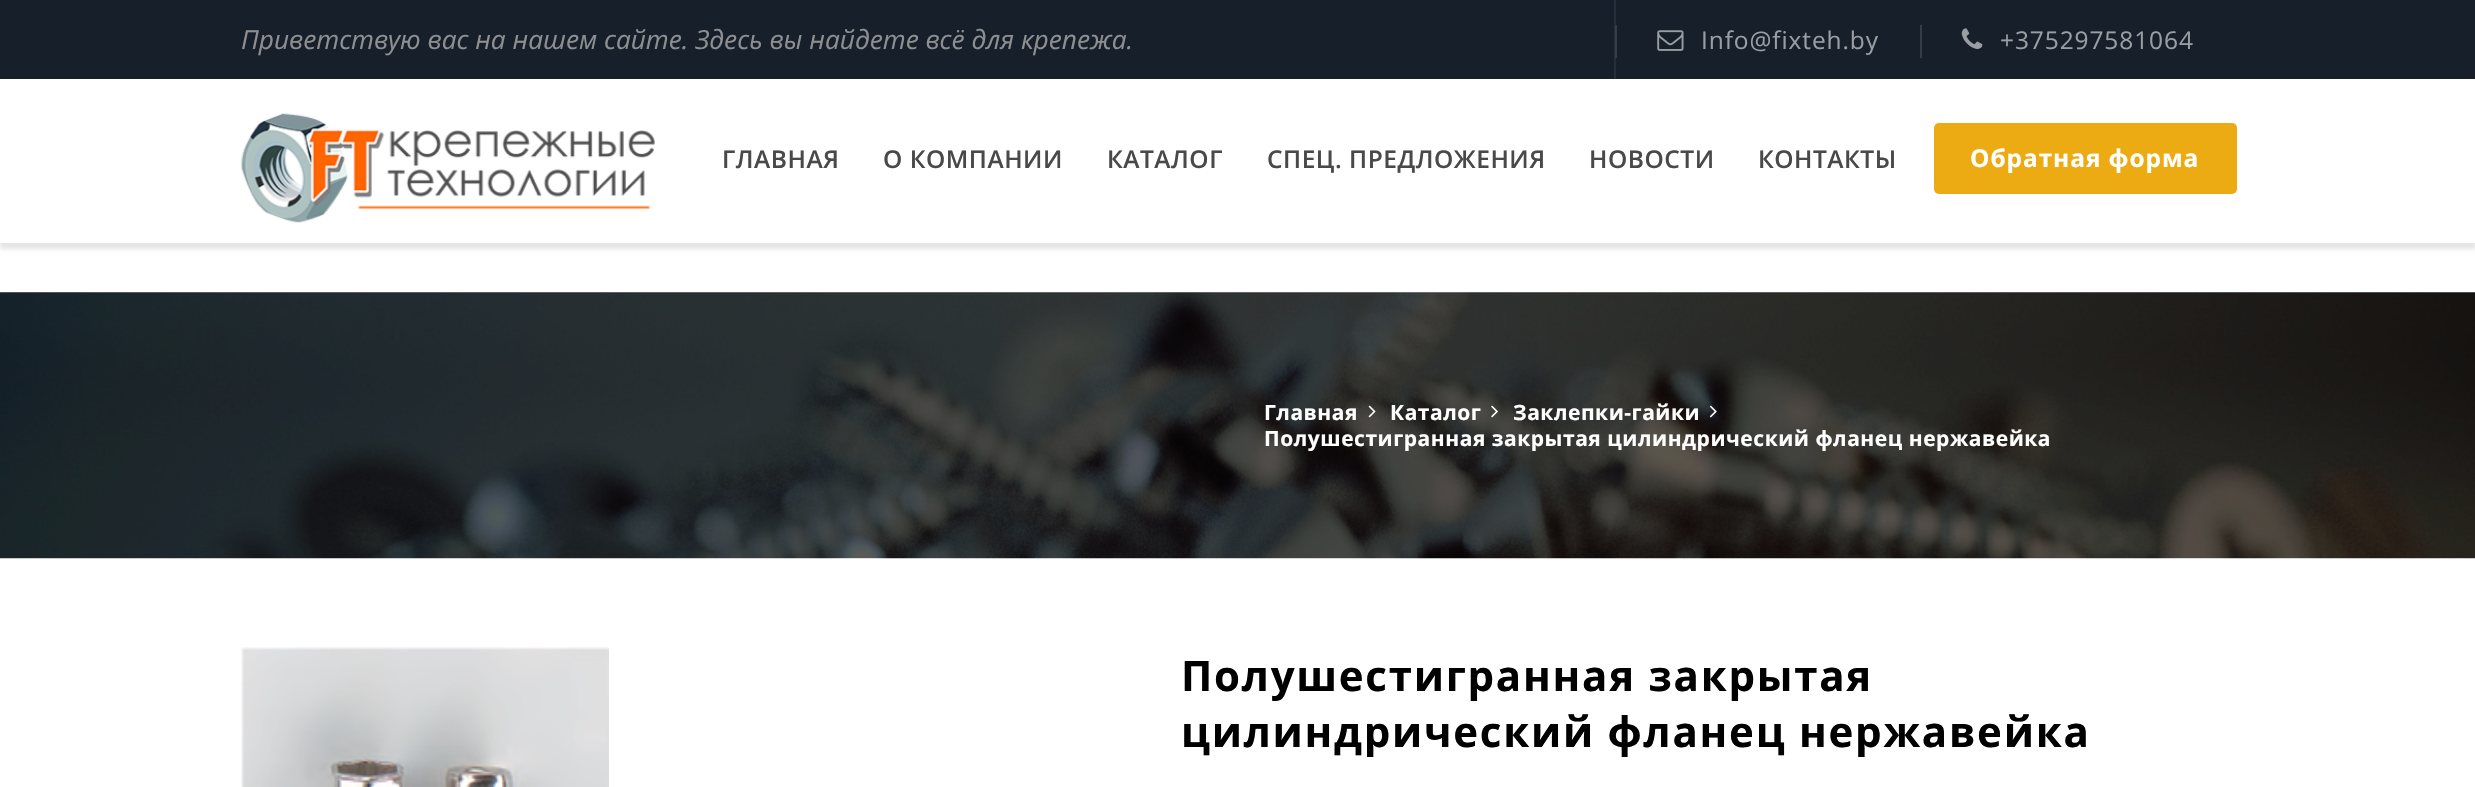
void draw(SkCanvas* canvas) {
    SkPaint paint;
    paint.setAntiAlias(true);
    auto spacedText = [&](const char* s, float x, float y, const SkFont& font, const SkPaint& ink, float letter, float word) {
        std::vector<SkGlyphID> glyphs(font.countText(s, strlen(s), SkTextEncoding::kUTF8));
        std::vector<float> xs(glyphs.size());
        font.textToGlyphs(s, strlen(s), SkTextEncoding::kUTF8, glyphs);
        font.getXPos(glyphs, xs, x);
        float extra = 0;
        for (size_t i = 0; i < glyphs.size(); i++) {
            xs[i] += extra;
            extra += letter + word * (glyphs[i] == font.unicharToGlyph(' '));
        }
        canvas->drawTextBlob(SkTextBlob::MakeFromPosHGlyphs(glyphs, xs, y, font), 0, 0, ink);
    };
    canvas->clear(0xFFFFFFFF);
    paint.setColor(0x1A000000);
    paint.setMaskFilter(SkMaskFilter::MakeBlur(kNormal_SkBlurStyle, 2));
    canvas->drawRect(SkRect::MakeXYWH(0, 5, 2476, 244), paint);
    paint.setMaskFilter(nullptr);
    paint.setColor(0xFFFFFFFF);
    canvas->drawRect(SkRect::MakeXYWH(0, 79, 2475, 164), paint);
    paint.setColor(0xFF171F2B);
    canvas->drawRect(SkRect::MakeXYWH(0, 0, 2475, 79), paint);
    SkFont font1(fontMgr->matchFamilyStyle("Open Sans", SkFontStyle::Italic()), 26.25f);
    font1.setSubpixel(true);
    paint.setColor(0xFF8E8F90);
    canvas->drawString("Приветствую вас на нашем сайте. Здесь вы найдете всё для крепежа.", 241, 49, font1, paint);
    paint.setColor(0xFF252E3C);
    canvas->drawRect(SkRect::MakeXYWH(1614, 0, 2, 79), paint);
    paint.setColor(0xFF343E45);
    canvas->drawRect(SkRect::MakeXYWH(1615, 25, 2, 33), paint);
    canvas->drawImageRect(SkImages::DeferredFromEncodedData(SkData::MakeFromFileName("img1.png")), SkRect::MakeXYWH(1657, 30, 27, 21), SkSamplingOptions());
    SkFont font2(fontMgr->matchFamilyStyle("Open Sans", SkFontStyle::Normal()), 24.5f);
    font2.setSubpixel(true);
    paint.setColor(0xFF999EA3);
    spacedText("Info@fixteh.by", 1701, 49, font2, paint, 0.9f, 0);
    paint.setColor(0xFF343E45);
    canvas->drawRect(SkRect::MakeXYWH(1920, 25, 2, 33), paint);
    canvas->drawImageRect(SkImages::DeferredFromEncodedData(SkData::MakeFromFileName("img2.png")), SkRect::MakeXYWH(1961, 28, 22, 21), SkSamplingOptions());
    paint.setColor(0xFF999EA3);
    spacedText("+375297581064", 2000, 49, font2, paint, 0.9f, 0);
    SkFont font3(fontMgr->matchFamilyStyle("Open Sans", SkFontStyle(600, SkFontStyle::kNormal_Width, SkFontStyle::kUpright_Slant)), 24.5f);
    font3.setSubpixel(true);
    paint.setColor(0xFF494949);
    spacedText("ГЛАВНАЯ", 722, 168, font3, paint, 0.53f, 0);
    spacedText("О КОМПАНИИ", 883, 168, font3, paint, 0.53f, 0);
    spacedText("КАТАЛОГ", 1107, 168, font3, paint, 0.53f, 0);
    spacedText("СПЕЦ. ПРЕДЛОЖЕНИЯ", 1267, 168, font3, paint, 0.53f, 0);
    spacedText("НОВОСТИ", 1589, 168, font3, paint, 0.53f, 0);
    spacedText("КОНТАКТЫ", 1758, 168, font3, paint, 0.53f, 0);
    paint.setColor(0xFFECAB13);
    canvas->drawRoundRect(SkRect::MakeXYWH(1934, 123, 303, 71), 5, 5, paint);
    SkFont font4(fontMgr->matchFamilyStyle("Open Sans", SkFontStyle::Bold()), 24.5f);
    font4.setSubpixel(true);
    paint.setColor(0xFFFFFFFF);
    spacedText("Обратная форма", 1970, 167, font4, paint, 0.9f, 0);
    canvas->drawImageRect(SkImages::DeferredFromEncodedData(SkData::MakeFromFileName("img3.png")), SkRect::MakeXYWH(240, 113, 415, 110), SkSamplingOptions());
    canvas->drawImageRect(SkImages::DeferredFromEncodedData(SkData::MakeFromFileName("img4.png")), SkRect::MakeXYWH(0, 292, 2475, 267), SkSamplingOptions());
    SkFont font5(fontMgr->matchFamilyStyle("Open Sans", SkFontStyle::Bold()), 21);
    font5.setSubpixel(true);
    spacedText("Главная", 1264, 420, font5, paint, 0.53f, 0);
    canvas->drawImageRect(SkImages::DeferredFromEncodedData(SkData::MakeFromFileName("img5.png")), SkRect::MakeXYWH(1368, 405, 8, 13), SkSamplingOptions());
    spacedText("Каталог", 1390, 420, font5, paint, 0.53f, 0);
    canvas->drawImageRect(SkImages::DeferredFromEncodedData(SkData::MakeFromFileName("img6.png")), SkRect::MakeXYWH(1491, 405, 7, 13), SkSamplingOptions());
    spacedText("Заклепки-гайки", 1513, 420, font5, paint, 0.53f, 0);
    canvas->drawImageRect(SkImages::DeferredFromEncodedData(SkData::MakeFromFileName("img7.png")), SkRect::MakeXYWH(1709, 405, 8, 13), SkSamplingOptions());
    spacedText("Полушестигранная закрытая цилиндрический фланец нержавейка", 1264, 446, font5, paint, 0.53f, 0);
    canvas->drawImageRect(SkImages::DeferredFromEncodedData(SkData::MakeFromFileName("img8.png")), SkRect::MakeXYWH(241, 647, 368, 140), SkSamplingOptions());
    SkFont font6(fontMgr->matchFamilyStyle("Open Sans", SkFontStyle::Bold()), 42);
    font6.setSubpixel(true);
    paint.setColor(0xFF000000);
    spacedText("Полушестигранная закрытая", 1181, 691, font6, paint, 1.75f, 0);
    spacedText("цилиндрический фланец нержавейка", 1181, 747, font6, paint, 1.75f, 0);
}
